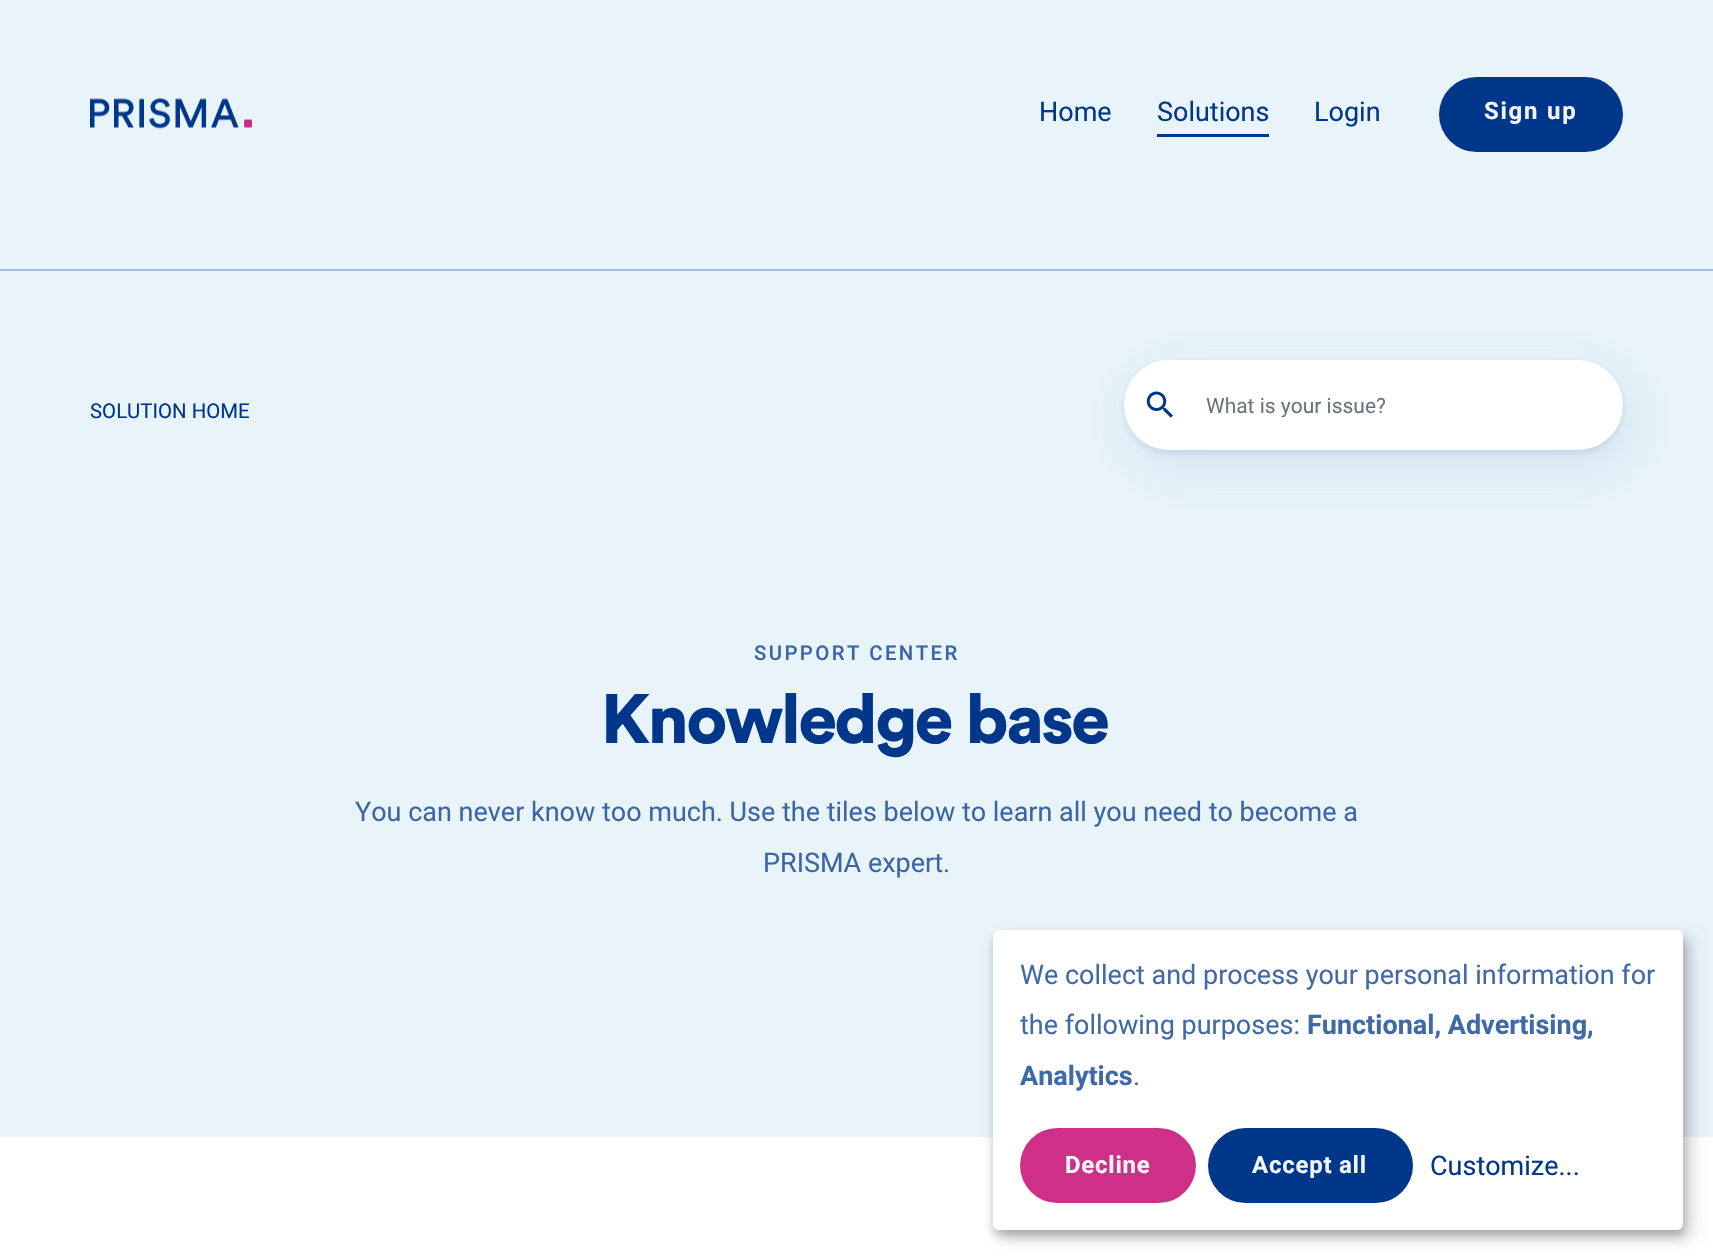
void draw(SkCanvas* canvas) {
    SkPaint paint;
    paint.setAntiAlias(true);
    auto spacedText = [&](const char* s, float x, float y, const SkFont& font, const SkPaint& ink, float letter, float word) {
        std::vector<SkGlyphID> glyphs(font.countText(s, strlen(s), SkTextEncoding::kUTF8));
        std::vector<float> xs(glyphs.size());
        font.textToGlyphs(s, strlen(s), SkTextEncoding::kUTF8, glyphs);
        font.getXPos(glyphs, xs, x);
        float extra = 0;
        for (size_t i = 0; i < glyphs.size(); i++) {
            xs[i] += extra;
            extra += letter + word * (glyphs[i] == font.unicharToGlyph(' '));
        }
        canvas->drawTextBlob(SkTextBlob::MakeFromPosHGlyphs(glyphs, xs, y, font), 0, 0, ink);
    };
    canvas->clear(0xFFE9F4FA);
    canvas->drawImageRect(SkImages::DeferredFromEncodedData(SkData::MakeFromFileName("img1.png")), SkRect::MakeXYWH(90, 98, 162, 31), SkSamplingOptions());
    SkFont font1(fontMgr->matchFamilyStyle("Roboto", SkFontStyle::Normal()), 27);
    font1.setSubpixel(true);
    paint.setColor(0xFF00378B);
    canvas->drawString("Home", 1039, 121, font1, paint);
    canvas->drawString("Solutions", 1157, 121, font1, paint);
    canvas->drawRect(SkRect::MakeXYWH(1157, 134, 112, 3), paint);
    canvas->drawString("Login", 1314, 121, font1, paint);
    canvas->drawRoundRect(SkRect::MakeXYWH(1439, 77, 184, 75), 37.5f, 37.5f, paint);
    SkFont font2(fontMgr->matchFamilyStyle("Roboto", SkFontStyle::Bold()), 24);
    font2.setSubpixel(true);
    paint.setColor(0xFFF2F5F9);
    spacedText("Sign up", 1484, 119, font2, paint, 1.75f, 0);
    paint.setColor(0xFFA3BBD9);
    canvas->drawRect(SkRect::MakeXYWH(0, 269, 1713, 2), paint);
    SkFont font3(fontMgr->matchFamilyStyle("Roboto", SkFontStyle::Normal()), 20.4f);
    font3.setSubpixel(true);
    paint.setColor(0xFF00378B);
    canvas->drawString("SOLUTION HOME", 90, 418, font3, paint);
    paint.setColor(0x1A00378B);
    paint.setMaskFilter(SkMaskFilter::MakeBlur(kNormal_SkBlurStyle, 26));
    canvas->drawRoundRect(SkRect::MakeXYWH(1131, 375, 500, 90), 45, 45, paint);
    paint.setMaskFilter(nullptr);
    paint.setMaskFilter(SkMaskFilter::MakeBlur(kNormal_SkBlurStyle, 3));
    canvas->drawRoundRect(SkRect::MakeXYWH(1124, 363, 499, 90), 45, 45, paint);
    paint.setMaskFilter(nullptr);
    paint.setColor(0xFFFFFFFF);
    canvas->drawRoundRect(SkRect::MakeXYWH(1124, 360, 499, 90), 45, 45, paint);
    canvas->drawImageRect(SkImages::DeferredFromEncodedData(SkData::MakeFromFileName("img2.png")), SkRect::MakeXYWH(1146, 391, 27, 27), SkSamplingOptions());
    canvas->save();
    canvas->clipRect(SkRect::MakeXYWH(1206, 393, 267, 24));
    SkFont font4(fontMgr->matchFamilyStyle("Roboto", SkFontStyle::Normal()), 21);
    font4.setSubpixel(true);
    paint.setColor(0xFF6C757D);
    canvas->drawString("What is your issue?", 1206, 413, font4, paint);
    canvas->restore();
    SkFont font5(fontMgr->matchFamilyStyle("Roboto", SkFontStyle(500, SkFontStyle::kNormal_Width, SkFontStyle::kUpright_Slant)), 20.4f);
    font5.setSubpixel(true);
    paint.setColor(0xFF3A66A7);
    spacedText("SUPPORT CENTER", 754, 660, font5, paint, 2.4f, 0);
    SkFont font6(fontMgr->matchFamilyStyle("Circular", SkFontStyle(900, SkFontStyle::kNormal_Width, SkFontStyle::kUpright_Slant)), 69);
    font6.setSubpixel(true);
    paint.setColor(0xFF00378B);
    spacedText("Knowledge base", 601, 743, font6, paint, -2.4f, 0);
    paint.setColor(0xFF3A66A7);
    canvas->drawString("You can never know too much. Use the tiles below to learn all you need to become a", 355, 821, font1, paint);
    canvas->drawString("PRISMA expert.", 763, 872, font1, paint);
    paint.setColor(0xFFFFFFFF);
    canvas->drawRect(SkRect::MakeXYWH(0, 1137, 1713, 123), paint);
    paint.setColor(0x30000000);
    paint.setMaskFilter(SkMaskFilter::MakeBlur(kNormal_SkBlurStyle, 7.5f));
    canvas->drawRoundRect(SkRect::MakeXYWH(1001, 938, 690, 300), 6, 6, paint);
    paint.setMaskFilter(nullptr);
    paint.setColor(0x33000000);
    paint.setMaskFilter(SkMaskFilter::MakeBlur(kNormal_SkBlurStyle, 4.5f));
    canvas->drawRoundRect(SkRect::MakeXYWH(993, 936, 690, 300), 6, 6, paint);
    paint.setMaskFilter(nullptr);
    paint.setColor(0xFFFFFFFF);
    canvas->drawRoundRect(SkRect::MakeXYWH(993, 930, 690, 300), 6, 6, paint);
    paint.setColor(0xFF4069A8);
    canvas->drawString("We collect and process your personal information for", 1020, 984, font1, paint);
    canvas->drawString("the following purposes:", 1020, 1034, font1, paint);
    SkFont font7(fontMgr->matchFamilyStyle("Roboto", SkFontStyle::Bold()), 27);
    font7.setSubpixel(true);
    canvas->drawString("Functional, Advertising,", 1307, 1034, font7, paint);
    canvas->drawString("Analytics", 1020, 1085, font7, paint);
    canvas->drawString(".", 1133, 1085, font1, paint);
    paint.setColor(0xFFCE2F87);
    canvas->drawRoundRect(SkRect::MakeXYWH(1020, 1128, 176, 75), 37.5f, 37.5f, paint);
    paint.setColor(0xFFFDF5F9);
    spacedText("Decline", 1065, 1173, font2, paint, 0.75f, 0);
    paint.setColor(0xFF00378B);
    canvas->drawRoundRect(SkRect::MakeXYWH(1208, 1128, 205, 75), 37.5f, 37.5f, paint);
    paint.setColor(0xFFF2F5F9);
    spacedText("Accept all", 1252, 1173, font2, paint, 0.75f, 0);
    paint.setColor(0xFF00378B);
    canvas->drawString("Customize...", 1430, 1175, font1, paint);
}
